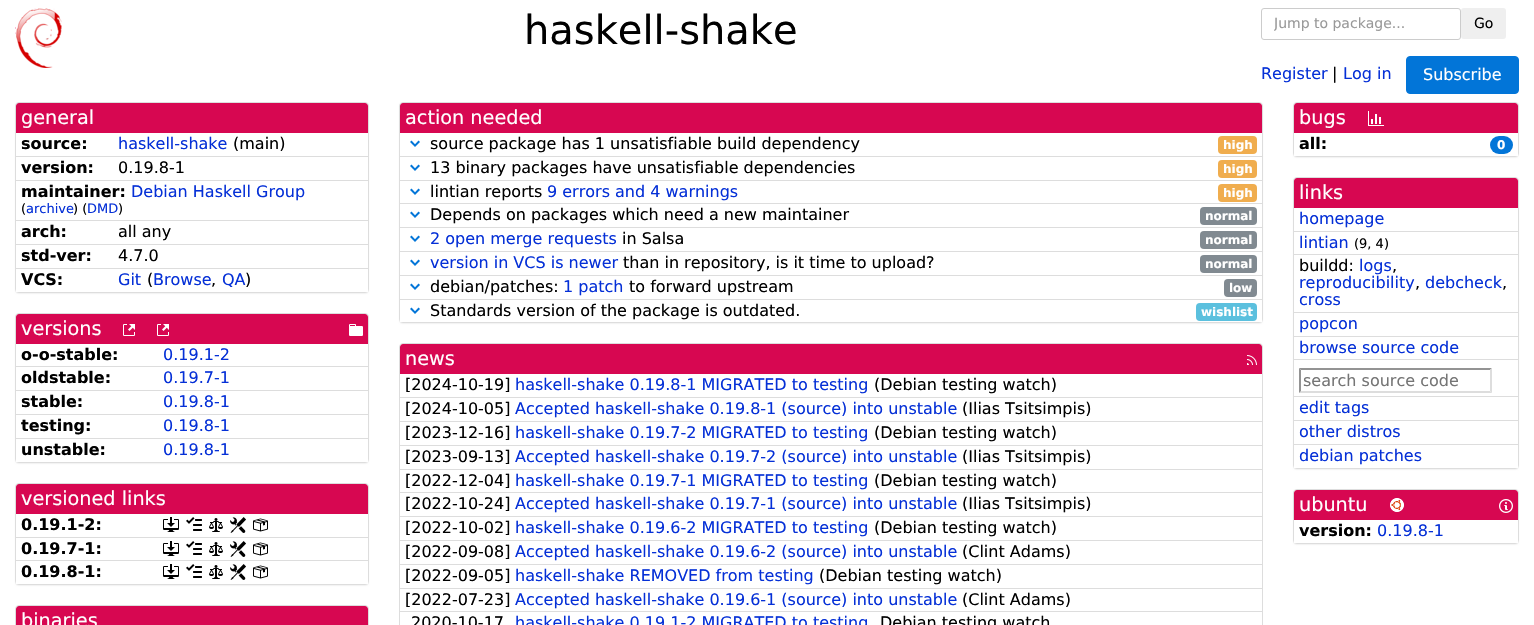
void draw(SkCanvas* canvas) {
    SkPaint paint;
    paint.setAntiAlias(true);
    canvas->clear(0xFFFFFFFF);
    canvas->drawImageRect(SkImages::DeferredFromEncodedData(SkData::MakeFromFileName("img1.png")), SkRect::MakeXYWH(15, 8, 47, 60), SkSamplingOptions());
    SkFont font1(fontMgr->matchFamilyStyle("DejaVu Sans", SkFontStyle::Normal()), 40);
    font1.setSubpixel(true);
    paint.setColor(0xFF000000);
    canvas->drawString("haskell-shake", 524, 44, font1, paint);
    paint.setStyle(SkPaint::kStroke_Style);
    paint.setStrokeWidth(1);
    paint.setColor(0xFFCCCCCC);
    canvas->drawRoundRect(SkRect::MakeXYWH(1261.5f, 8.5f, 199, 31), 2.5f, 2.5f, paint);
    canvas->save();
    canvas->clipRect(SkRect::MakeXYWH(1274, 15, 170, 16));
    SkFont font2(fontMgr->matchFamilyStyle("DejaVu Sans", SkFontStyle::Normal()), 14);
    font2.setSubpixel(true);
    paint.setStyle(SkPaint::kFill_Style);
    paint.setColor(0xFF999999);
    canvas->drawString("Jump to package...", 1274, 28, font2, paint);
    canvas->restore();
    paint.setColor(0xFFEFEFEF);
    canvas->drawRoundRect(SkRect::MakeXYWH(1461, 8, 45, 31), 3, 3, paint);
    paint.setColor(0xFF000000);
    canvas->drawString("Go", 1474, 28, font2, paint);
    SkFont font3(fontMgr->matchFamilyStyle("DejaVu Sans", SkFontStyle::Normal()), 16);
    font3.setSubpixel(true);
    paint.setColor(0xFF0530D7);
    canvas->drawString("Register", 1261, 79, font3, paint);
    paint.setColor(0xFF000000);
    canvas->drawString("|", 1332, 79, font3, paint);
    paint.setColor(0xFF0530D7);
    canvas->drawString("Log in", 1343, 79, font3, paint);
    paint.setColor(0xFF0275D8);
    canvas->drawRoundRect(SkRect::MakeXYWH(1406.5f, 56.5f, 112, 37), 3.5f, 3.5f, paint);
    paint.setStyle(SkPaint::kStroke_Style);
    canvas->drawRoundRect(SkRect::MakeXYWH(1406.5f, 56.5f, 112, 37), 3.5f, 3.5f, paint);
    paint.setStyle(SkPaint::kFill_Style);
    paint.setColor(0xFFFFFFFF);
    canvas->drawString("Subscribe", 1423, 80, font3, paint);
    paint.setColor(0x0D000000);
    paint.setMaskFilter(SkMaskFilter::MakeBlur(kNormal_SkBlurStyle, 0.5f));
    canvas->drawRoundRect(SkRect::MakeXYWH(15, 103, 354, 191), 4, 4, paint);
    paint.setMaskFilter(nullptr);
    paint.setStyle(SkPaint::kStroke_Style);
    paint.setColor(0xFFDDDDDD);
    canvas->drawRoundRect(SkRect::MakeXYWH(15.5f, 102.5f, 353, 190), 3.5f, 3.5f, paint);
    paint.setStyle(SkPaint::kFill_Style);
    paint.setColor(0xFFD70751);
    canvas->drawPath(SkPathBuilder().moveTo(19, 103).lineTo(365, 103).cubicTo(366.5f, 103, 368, 104.5f, 368, 106).lineTo(368, 134).lineTo(16, 134).lineTo(16, 106).cubicTo(16, 104.5f, 17.5f, 103, 19, 103).close().detach(), paint);
    SkFont font4(fontMgr->matchFamilyStyle("DejaVu Sans", SkFontStyle::Normal()), 19.25f);
    font4.setSubpixel(true);
    paint.setColor(0xFFFFFFFF);
    canvas->drawString("general", 21, 124, font4, paint);
    canvas->drawRect(SkRect::MakeXYWH(16, 133, 352, 159), paint);
    paint.setColor(0xFFDDDDDD);
    canvas->drawRect(SkRect::MakeXYWH(16, 156, 352, 1), paint);
    SkFont font5(fontMgr->matchFamilyStyle("DejaVu Sans", SkFontStyle::Bold()), 16);
    font5.setSubpixel(true);
    paint.setColor(0xFF000000);
    canvas->drawString("source:", 21, 149, font5, paint);
    paint.setColor(0xFF0530D7);
    canvas->drawString("haskell-shake", 118, 149, font3, paint);
    paint.setColor(0xFF000000);
    canvas->drawString("(main)", 233, 149, font3, paint);
    paint.setColor(0xFFDDDDDD);
    canvas->drawRect(SkRect::MakeXYWH(16, 180, 352, 1), paint);
    paint.setColor(0xFF000000);
    canvas->drawString("version:", 21, 173, font5, paint);
    canvas->drawString("0.19.8-1", 118, 173, font3, paint);
    paint.setColor(0xFFDDDDDD);
    canvas->drawRect(SkRect::MakeXYWH(16, 220, 352, 1), paint);
    paint.setColor(0xFF000000);
    canvas->drawString("maintainer:", 21, 197, font5, paint);
    paint.setColor(0xFF0530D7);
    canvas->drawString("Debian Haskell Group", 131, 197, font3, paint);
    SkFont font6(fontMgr->matchFamilyStyle("DejaVu Sans", SkFontStyle::Normal()), 13);
    font6.setSubpixel(true);
    paint.setColor(0xFF000000);
    canvas->drawString("(", 21, 213, font6, paint);
    paint.setColor(0xFF0530D7);
    canvas->drawString("archive", 26, 213, font6, paint);
    paint.setColor(0xFF000000);
    canvas->drawString(") (", 73, 213, font6, paint);
    paint.setColor(0xFF0530D7);
    canvas->drawString("DMD", 87, 213, font6, paint);
    paint.setColor(0xFF000000);
    canvas->drawString(")", 118, 213, font6, paint);
    paint.setColor(0xFFDDDDDD);
    canvas->drawRect(SkRect::MakeXYWH(16, 244, 352, 1), paint);
    paint.setColor(0xFF000000);
    canvas->drawString("arch:", 21, 237, font5, paint);
    canvas->drawString("all any", 118, 237, font3, paint);
    canvas->drawString("std-ver:", 21, 261, font5, paint);
    canvas->drawString("4.7.0", 118, 261, font3, paint);
    paint.setColor(0xFFDDDDDD);
    canvas->drawRect(SkRect::MakeXYWH(16, 268, 352, 1), paint);
    paint.setColor(0xFF000000);
    canvas->drawString("VCS:", 21, 285, font5, paint);
    paint.setColor(0xFF0530D7);
    canvas->drawString("Git", 118, 285, font3, paint);
    paint.setColor(0xFF000000);
    canvas->drawString("(", 147, 285, font3, paint);
    paint.setColor(0xFF0530D7);
    canvas->drawString("Browse", 153, 285, font3, paint);
    paint.setColor(0xFF000000);
    canvas->drawString(",", 211, 285, font3, paint);
    paint.setColor(0xFF0530D7);
    canvas->drawString("QA", 222, 285, font3, paint);
    paint.setColor(0xFF000000);
    canvas->drawString(")", 245, 285, font3, paint);
    paint.setColor(0x0D000000);
    paint.setMaskFilter(SkMaskFilter::MakeBlur(kNormal_SkBlurStyle, 0.5f));
    canvas->drawRoundRect(SkRect::MakeXYWH(15, 314, 354, 150), 4, 4, paint);
    paint.setMaskFilter(nullptr);
    paint.setStyle(SkPaint::kStroke_Style);
    paint.setColor(0xFFDDDDDD);
    canvas->drawRoundRect(SkRect::MakeXYWH(15.5f, 313.5f, 353, 149), 3.5f, 3.5f, paint);
    paint.setStyle(SkPaint::kFill_Style);
    paint.setColor(0xFFD70751);
    canvas->drawPath(SkPathBuilder().moveTo(19, 314).lineTo(365, 314).cubicTo(366.5f, 314, 368, 315.5f, 368, 317).lineTo(368, 345).lineTo(16, 345).lineTo(16, 317).cubicTo(16, 315.5f, 17.5f, 314, 19, 314).close().detach(), paint);
    paint.setColor(0xFFFFFFFF);
    canvas->drawString("versions", 21, 335, font4, paint);
    canvas->drawImageRect(SkImages::DeferredFromEncodedData(SkData::MakeFromFileName("img2.png")), SkRect::MakeXYWH(123, 324, 12, 12), SkSamplingOptions());
    canvas->drawImageRect(SkImages::DeferredFromEncodedData(SkData::MakeFromFileName("img2.png")), SkRect::MakeXYWH(157, 324, 12, 12), SkSamplingOptions());
    canvas->drawImageRect(SkImages::DeferredFromEncodedData(SkData::MakeFromFileName("img3.png")), SkRect::MakeXYWH(349, 324, 14, 12), SkSamplingOptions());
    canvas->drawRect(SkRect::MakeXYWH(16, 344, 352, 118), paint);
    paint.setColor(0xFFDDDDDD);
    canvas->drawRect(SkRect::MakeXYWH(16, 366, 352, 1), paint);
    paint.setColor(0xFF000000);
    canvas->drawString("o-o-stable:", 21, 360, font5, paint);
    paint.setColor(0xFF0530D7);
    canvas->drawString("0.19.1-2", 163, 360, font3, paint);
    paint.setColor(0xFFDDDDDD);
    canvas->drawRect(SkRect::MakeXYWH(16, 390, 352, 1), paint);
    paint.setColor(0xFF000000);
    canvas->drawString("oldstable:", 21, 383, font5, paint);
    paint.setColor(0xFF0530D7);
    canvas->drawString("0.19.7-1", 163, 383, font3, paint);
    paint.setColor(0xFFDDDDDD);
    canvas->drawRect(SkRect::MakeXYWH(16, 414, 352, 1), paint);
    paint.setColor(0xFF000000);
    canvas->drawString("stable:", 21, 407, font5, paint);
    paint.setColor(0xFF0530D7);
    canvas->drawString("0.19.8-1", 163, 407, font3, paint);
    paint.setColor(0xFF000000);
    canvas->drawString("testing:", 21, 431, font5, paint);
    paint.setColor(0xFF0530D7);
    canvas->drawString("0.19.8-1", 163, 431, font3, paint);
    paint.setColor(0xFFDDDDDD);
    canvas->drawRect(SkRect::MakeXYWH(16, 438, 352, 1), paint);
    paint.setColor(0xFF000000);
    canvas->drawString("unstable:", 21, 455, font5, paint);
    paint.setColor(0xFF0530D7);
    canvas->drawString("0.19.8-1", 163, 455, font3, paint);
    paint.setColor(0x0D000000);
    paint.setMaskFilter(SkMaskFilter::MakeBlur(kNormal_SkBlurStyle, 0.5f));
    canvas->drawRoundRect(SkRect::MakeXYWH(15, 484, 354, 102), 4, 4, paint);
    paint.setMaskFilter(nullptr);
    paint.setStyle(SkPaint::kStroke_Style);
    paint.setColor(0xFFDDDDDD);
    canvas->drawRoundRect(SkRect::MakeXYWH(15.5f, 483.5f, 353, 101), 3.5f, 3.5f, paint);
    paint.setStyle(SkPaint::kFill_Style);
    paint.setColor(0xFFD70751);
    canvas->drawPath(SkPathBuilder().moveTo(19, 484).lineTo(365, 484).cubicTo(366.5f, 484, 368, 485.5f, 368, 487).lineTo(368, 515).lineTo(16, 515).lineTo(16, 487).cubicTo(16, 485.5f, 17.5f, 484, 19, 484).close().detach(), paint);
    paint.setColor(0xFFFFFFFF);
    canvas->drawString("versioned links", 21, 505, font4, paint);
    canvas->drawRect(SkRect::MakeXYWH(16, 514, 352, 70), paint);
    paint.setColor(0xFFDDDDDD);
    canvas->drawRect(SkRect::MakeXYWH(16, 537, 352, 1), paint);
    paint.setColor(0xFF000000);
    canvas->drawString("0.19.1-2:", 21, 530, font5, paint);
    canvas->drawImageRect(SkImages::DeferredFromEncodedData(SkData::MakeFromFileName("img4.png")), SkRect::MakeXYWH(163, 517, 16, 15), SkSamplingOptions());
    canvas->drawImageRect(SkImages::DeferredFromEncodedData(SkData::MakeFromFileName("img5.png")), SkRect::MakeXYWH(186, 517, 16, 14), SkSamplingOptions());
    canvas->drawImageRect(SkImages::DeferredFromEncodedData(SkData::MakeFromFileName("img6.png")), SkRect::MakeXYWH(209, 518, 14, 14), SkSamplingOptions());
    canvas->drawImageRect(SkImages::DeferredFromEncodedData(SkData::MakeFromFileName("img7.png")), SkRect::MakeXYWH(230, 517, 16, 16), SkSamplingOptions());
    canvas->drawImageRect(SkImages::DeferredFromEncodedData(SkData::MakeFromFileName("img8.png")), SkRect::MakeXYWH(253, 518, 15, 14), SkSamplingOptions());
    canvas->drawString("0.19.7-1:", 21, 554, font5, paint);
    canvas->drawImageRect(SkImages::DeferredFromEncodedData(SkData::MakeFromFileName("img4.png")), SkRect::MakeXYWH(163, 541, 16, 15), SkSamplingOptions());
    canvas->drawImageRect(SkImages::DeferredFromEncodedData(SkData::MakeFromFileName("img5.png")), SkRect::MakeXYWH(186, 541, 16, 14), SkSamplingOptions());
    canvas->drawImageRect(SkImages::DeferredFromEncodedData(SkData::MakeFromFileName("img6.png")), SkRect::MakeXYWH(209, 542, 14, 14), SkSamplingOptions());
    canvas->drawImageRect(SkImages::DeferredFromEncodedData(SkData::MakeFromFileName("img7.png")), SkRect::MakeXYWH(230, 541, 16, 16), SkSamplingOptions());
    canvas->drawImageRect(SkImages::DeferredFromEncodedData(SkData::MakeFromFileName("img8.png")), SkRect::MakeXYWH(253, 542, 15, 14), SkSamplingOptions());
    paint.setColor(0xFFDDDDDD);
    canvas->drawRect(SkRect::MakeXYWH(16, 560, 352, 1), paint);
    paint.setColor(0xFF000000);
    canvas->drawString("0.19.8-1:", 21, 577, font5, paint);
    canvas->drawImageRect(SkImages::DeferredFromEncodedData(SkData::MakeFromFileName("img4.png")), SkRect::MakeXYWH(163, 564, 16, 15), SkSamplingOptions());
    canvas->drawImageRect(SkImages::DeferredFromEncodedData(SkData::MakeFromFileName("img5.png")), SkRect::MakeXYWH(186, 564, 16, 14), SkSamplingOptions());
    canvas->drawImageRect(SkImages::DeferredFromEncodedData(SkData::MakeFromFileName("img6.png")), SkRect::MakeXYWH(209, 565, 14, 14), SkSamplingOptions());
    canvas->drawImageRect(SkImages::DeferredFromEncodedData(SkData::MakeFromFileName("img7.png")), SkRect::MakeXYWH(230, 564, 16, 16), SkSamplingOptions());
    canvas->drawImageRect(SkImages::DeferredFromEncodedData(SkData::MakeFromFileName("img8.png")), SkRect::MakeXYWH(253, 565, 15, 14), SkSamplingOptions());
    paint.setStyle(SkPaint::kStroke_Style);
    paint.setColor(0xFFDDDDDD);
    canvas->drawRoundRect(SkRect::MakeXYWH(15.5f, 605.5f, 353, 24), 3.5f, 3.5f, paint);
    paint.setStyle(SkPaint::kFill_Style);
    paint.setColor(0xFFD70751);
    canvas->drawPath(SkPathBuilder().moveTo(19, 606).lineTo(365, 606).cubicTo(366.5f, 606, 368, 607.5f, 368, 609).lineTo(368, 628).lineTo(16, 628).lineTo(16, 609).cubicTo(16, 607.5f, 17.5f, 606, 19, 606).close().detach(), paint);
    paint.setColor(0xFFFFFFFF);
    canvas->drawString("binaries", 21, 627, font4, paint);
    paint.setColor(0x0D000000);
    paint.setMaskFilter(SkMaskFilter::MakeBlur(kNormal_SkBlurStyle, 0.5f));
    canvas->drawRoundRect(SkRect::MakeXYWH(399, 103, 864, 221), 4, 4, paint);
    paint.setMaskFilter(nullptr);
    paint.setStyle(SkPaint::kStroke_Style);
    paint.setColor(0xFFDDDDDD);
    canvas->drawRoundRect(SkRect::MakeXYWH(399.5f, 102.5f, 863, 220), 3.5f, 3.5f, paint);
    paint.setStyle(SkPaint::kFill_Style);
    paint.setColor(0xFFD70751);
    canvas->drawPath(SkPathBuilder().moveTo(403, 103).lineTo(1259, 103).cubicTo(1260.5f, 103, 1262, 104.5f, 1262, 106).lineTo(1262, 134).lineTo(400, 134).lineTo(400, 106).cubicTo(400, 104.5f, 401.5f, 103, 403, 103).close().detach(), paint);
    paint.setColor(0xFFFFFFFF);
    canvas->drawString("action needed", 405, 124, font4, paint);
    canvas->drawRect(SkRect::MakeXYWH(400, 133, 862, 189), paint);
    paint.setColor(0xFFDDDDDD);
    canvas->drawRect(SkRect::MakeXYWH(400, 156, 862, 1), paint);
    canvas->drawImageRect(SkImages::DeferredFromEncodedData(SkData::MakeFromFileName("img9.png")), SkRect::MakeXYWH(410, 140, 10, 7), SkSamplingOptions());
    paint.setColor(0xFF000000);
    canvas->drawString("source package has 1 unsatisfiable build dependency", 430, 149, font3, paint);
    paint.setColor(0xFFF0AD4E);
    canvas->drawRoundRect(SkRect::MakeXYWH(1218, 136, 39, 18), 4, 4, paint);
    SkFont font7(fontMgr->matchFamilyStyle("DejaVu Sans", SkFontStyle::Bold()), 12);
    font7.setSubpixel(true);
    paint.setColor(0xFFFFFFFF);
    canvas->drawString("high", 1223, 149, font7, paint);
    paint.setColor(0xFFDDDDDD);
    canvas->drawRect(SkRect::MakeXYWH(400, 180, 862, 1), paint);
    canvas->drawImageRect(SkImages::DeferredFromEncodedData(SkData::MakeFromFileName("img9.png")), SkRect::MakeXYWH(410, 164, 10, 7), SkSamplingOptions());
    paint.setColor(0xFF000000);
    canvas->drawString("13 binary packages have unsatisfiable dependencies", 430, 173, font3, paint);
    paint.setColor(0xFFF0AD4E);
    canvas->drawRoundRect(SkRect::MakeXYWH(1218, 160, 39, 18), 4, 4, paint);
    paint.setColor(0xFFFFFFFF);
    canvas->drawString("high", 1223, 173, font7, paint);
    paint.setColor(0xFFDDDDDD);
    canvas->drawRect(SkRect::MakeXYWH(400, 203, 862, 1), paint);
    canvas->drawImageRect(SkImages::DeferredFromEncodedData(SkData::MakeFromFileName("img9.png")), SkRect::MakeXYWH(410, 188, 10, 7), SkSamplingOptions());
    paint.setColor(0xFF000000);
    canvas->drawString("lintian reports", 430, 197, font3, paint);
    paint.setColor(0xFF0530D7);
    canvas->drawString("9 errors and 4 warnings", 547, 197, font3, paint);
    paint.setColor(0xFFF0AD4E);
    canvas->drawRoundRect(SkRect::MakeXYWH(1218, 184, 39, 18), 4, 4, paint);
    paint.setColor(0xFFFFFFFF);
    canvas->drawString("high", 1223, 197, font7, paint);
    paint.setColor(0xFFDDDDDD);
    canvas->drawRect(SkRect::MakeXYWH(400, 227, 862, 1), paint);
    canvas->drawImageRect(SkImages::DeferredFromEncodedData(SkData::MakeFromFileName("img9.png")), SkRect::MakeXYWH(410, 211, 10, 7), SkSamplingOptions());
    paint.setColor(0xFF000000);
    canvas->drawString("Depends on packages which need a new maintainer", 430, 220, font3, paint);
    paint.setColor(0xFF818A91);
    canvas->drawRoundRect(SkRect::MakeXYWH(1200, 207, 57, 18), 4, 4, paint);
    paint.setColor(0xFFFFFFFF);
    canvas->drawString("normal", 1205, 220, font7, paint);
    paint.setColor(0xFFDDDDDD);
    canvas->drawRect(SkRect::MakeXYWH(400, 251, 862, 1), paint);
    canvas->drawImageRect(SkImages::DeferredFromEncodedData(SkData::MakeFromFileName("img9.png")), SkRect::MakeXYWH(410, 235, 10, 7), SkSamplingOptions());
    paint.setColor(0xFF0530D7);
    canvas->drawString("2 open merge requests", 430, 244, font3, paint);
    paint.setColor(0xFF000000);
    canvas->drawString("in Salsa", 622, 244, font3, paint);
    paint.setColor(0xFF818A91);
    canvas->drawRoundRect(SkRect::MakeXYWH(1200, 231, 57, 18), 4, 4, paint);
    paint.setColor(0xFFFFFFFF);
    canvas->drawString("normal", 1205, 244, font7, paint);
    paint.setColor(0xFFDDDDDD);
    canvas->drawRect(SkRect::MakeXYWH(400, 275, 862, 1), paint);
    canvas->drawImageRect(SkImages::DeferredFromEncodedData(SkData::MakeFromFileName("img9.png")), SkRect::MakeXYWH(410, 259, 10, 7), SkSamplingOptions());
    paint.setColor(0xFF0530D7);
    canvas->drawString("version in VCS is newer", 430, 268, font3, paint);
    paint.setColor(0xFF000000);
    canvas->drawString("than in repository, is it time to upload?", 623, 268, font3, paint);
    paint.setColor(0xFF818A91);
    canvas->drawRoundRect(SkRect::MakeXYWH(1200, 255, 57, 18), 4, 4, paint);
    paint.setColor(0xFFFFFFFF);
    canvas->drawString("normal", 1205, 268, font7, paint);
    canvas->drawImageRect(SkImages::DeferredFromEncodedData(SkData::MakeFromFileName("img9.png")), SkRect::MakeXYWH(410, 283, 10, 7), SkSamplingOptions());
    paint.setColor(0xFF000000);
    canvas->drawString("debian/patches:", 430, 292, font3, paint);
    paint.setColor(0xFF0530D7);
    canvas->drawString("1 patch", 563, 292, font3, paint);
    paint.setColor(0xFF000000);
    canvas->drawString("to forward upstream", 629, 292, font3, paint);
    paint.setColor(0xFF818A91);
    canvas->drawRoundRect(SkRect::MakeXYWH(1224, 279, 33, 18), 4, 4, paint);
    paint.setColor(0xFFFFFFFF);
    canvas->drawString("low", 1229, 292, font7, paint);
    paint.setColor(0xFFDDDDDD);
    canvas->drawRect(SkRect::MakeXYWH(400, 299, 862, 1), paint);
    canvas->drawImageRect(SkImages::DeferredFromEncodedData(SkData::MakeFromFileName("img9.png")), SkRect::MakeXYWH(410, 307, 10, 7), SkSamplingOptions());
    paint.setColor(0xFF000000);
    canvas->drawString("Standards version of the package is outdated.", 430, 316, font3, paint);
    paint.setColor(0xFF5BC0DE);
    canvas->drawRoundRect(SkRect::MakeXYWH(1196, 303, 61, 18), 4, 4, paint);
    paint.setColor(0xFFFFFFFF);
    canvas->drawString("wishlist", 1201, 316, font7, paint);
    paint.setStyle(SkPaint::kStroke_Style);
    paint.setColor(0xFFDDDDDD);
    canvas->drawRoundRect(SkRect::MakeXYWH(399.5f, 343.5f, 863, 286), 3.5f, 3.5f, paint);
    paint.setStyle(SkPaint::kFill_Style);
    paint.setColor(0xFFD70751);
    canvas->drawPath(SkPathBuilder().moveTo(403, 344).lineTo(1259, 344).cubicTo(1260.5f, 344, 1262, 345.5f, 1262, 347).lineTo(1262, 375).lineTo(400, 375).lineTo(400, 347).cubicTo(400, 345.5f, 401.5f, 344, 403, 344).close().detach(), paint);
    paint.setColor(0xFFFFFFFF);
    canvas->drawString("news", 405, 365, font4, paint);
    canvas->drawImageRect(SkImages::DeferredFromEncodedData(SkData::MakeFromFileName("img10.png")), SkRect::MakeXYWH(1247, 355, 10, 10), SkSamplingOptions());
    canvas->drawRect(SkRect::MakeXYWH(400, 374, 862, 1), paint);
    paint.setColor(0xFFDDDDDD);
    canvas->drawRect(SkRect::MakeXYWH(400, 397, 862, 1), paint);
    paint.setColor(0xFF000000);
    canvas->drawString("[2024-10-19]", 405, 390, font3, paint);
    paint.setColor(0xFF0530D7);
    canvas->drawString("haskell-shake 0.19.8-1 MIGRATED to testing", 515, 390, font3, paint);
    paint.setColor(0xFF000000);
    canvas->drawString("(Debian testing watch)", 874, 390, font3, paint);
    paint.setColor(0xFFDDDDDD);
    canvas->drawRect(SkRect::MakeXYWH(400, 421, 862, 1), paint);
    paint.setColor(0xFF000000);
    canvas->drawString("[2024-10-05]", 405, 414, font3, paint);
    paint.setColor(0xFF0530D7);
    canvas->drawString("Accepted haskell-shake 0.19.8-1 (source) into unstable", 515, 414, font3, paint);
    paint.setColor(0xFF000000);
    canvas->drawString("(Ilias Tsitsimpis)", 962, 414, font3, paint);
    paint.setColor(0xFFDDDDDD);
    canvas->drawRect(SkRect::MakeXYWH(400, 445, 862, 1), paint);
    paint.setColor(0xFF000000);
    canvas->drawString("[2023-12-16]", 405, 438, font3, paint);
    paint.setColor(0xFF0530D7);
    canvas->drawString("haskell-shake 0.19.7-2 MIGRATED to testing", 515, 438, font3, paint);
    paint.setColor(0xFF000000);
    canvas->drawString("(Debian testing watch)", 874, 438, font3, paint);
    paint.setColor(0xFFDDDDDD);
    canvas->drawRect(SkRect::MakeXYWH(400, 469, 862, 1), paint);
    paint.setColor(0xFF000000);
    canvas->drawString("[2023-09-13]", 405, 462, font3, paint);
    paint.setColor(0xFF0530D7);
    canvas->drawString("Accepted haskell-shake 0.19.7-2 (source) into unstable", 515, 462, font3, paint);
    paint.setColor(0xFF000000);
    canvas->drawString("(Ilias Tsitsimpis)", 962, 462, font3, paint);
    paint.setColor(0xFFDDDDDD);
    canvas->drawRect(SkRect::MakeXYWH(400, 492, 862, 1), paint);
    paint.setColor(0xFF000000);
    canvas->drawString("[2022-12-04]", 405, 486, font3, paint);
    paint.setColor(0xFF0530D7);
    canvas->drawString("haskell-shake 0.19.7-1 MIGRATED to testing", 515, 486, font3, paint);
    paint.setColor(0xFF000000);
    canvas->drawString("(Debian testing watch)", 874, 486, font3, paint);
    paint.setColor(0xFFDDDDDD);
    canvas->drawRect(SkRect::MakeXYWH(400, 516, 862, 1), paint);
    paint.setColor(0xFF000000);
    canvas->drawString("[2022-10-24]", 405, 509, font3, paint);
    paint.setColor(0xFF0530D7);
    canvas->drawString("Accepted haskell-shake 0.19.7-1 (source) into unstable", 515, 509, font3, paint);
    paint.setColor(0xFF000000);
    canvas->drawString("(Ilias Tsitsimpis)", 962, 509, font3, paint);
    paint.setColor(0xFFDDDDDD);
    canvas->drawRect(SkRect::MakeXYWH(400, 540, 862, 1), paint);
    paint.setColor(0xFF000000);
    canvas->drawString("[2022-10-02]", 405, 533, font3, paint);
    paint.setColor(0xFF0530D7);
    canvas->drawString("haskell-shake 0.19.6-2 MIGRATED to testing", 515, 533, font3, paint);
    paint.setColor(0xFF000000);
    canvas->drawString("(Debian testing watch)", 874, 533, font3, paint);
    paint.setColor(0xFFDDDDDD);
    canvas->drawRect(SkRect::MakeXYWH(400, 564, 862, 1), paint);
    paint.setColor(0xFF000000);
    canvas->drawString("[2022-09-08]", 405, 557, font3, paint);
    paint.setColor(0xFF0530D7);
    canvas->drawString("Accepted haskell-shake 0.19.6-2 (source) into unstable", 515, 557, font3, paint);
    paint.setColor(0xFF000000);
    canvas->drawString("(Clint Adams)", 962, 557, font3, paint);
    paint.setColor(0xFFDDDDDD);
    canvas->drawRect(SkRect::MakeXYWH(400, 588, 862, 1), paint);
    paint.setColor(0xFF000000);
    canvas->drawString("[2022-09-05]", 405, 581, font3, paint);
    paint.setColor(0xFF0530D7);
    canvas->drawString("haskell-shake REMOVED from testing", 515, 581, font3, paint);
    paint.setColor(0xFF000000);
    canvas->drawString("(Debian testing watch)", 819, 581, font3, paint);
    paint.setColor(0xFFDDDDDD);
    canvas->drawRect(SkRect::MakeXYWH(400, 611, 862, 1), paint);
    paint.setColor(0xFF000000);
    canvas->drawString("[2022-07-23]", 405, 605, font3, paint);
    paint.setColor(0xFF0530D7);
    canvas->drawString("Accepted haskell-shake 0.19.6-1 (source) into unstable", 515, 605, font3, paint);
    paint.setColor(0xFF000000);
    canvas->drawString("(Clint Adams)", 962, 605, font3, paint);
    canvas->drawString("2020-10-17", 411, 628, font3, paint);
    paint.setColor(0xFF0530D7);
    canvas->drawString("haskell-shake 0.19.1-2 MIGRATED to testing", 515, 628, font3, paint);
    paint.setColor(0xFF000000);
    canvas->drawString("Debian testing watch", 880, 628, font3, paint);
    paint.setColor(0x0D000000);
    paint.setMaskFilter(SkMaskFilter::MakeBlur(kNormal_SkBlurStyle, 0.5f));
    canvas->drawRoundRect(SkRect::MakeXYWH(1293, 103, 226, 55), 4, 4, paint);
    paint.setMaskFilter(nullptr);
    paint.setStyle(SkPaint::kStroke_Style);
    paint.setColor(0xFFDDDDDD);
    canvas->drawRoundRect(SkRect::MakeXYWH(1293.5f, 102.5f, 225, 54), 3.5f, 3.5f, paint);
    paint.setStyle(SkPaint::kFill_Style);
    paint.setColor(0xFFD70751);
    canvas->drawPath(SkPathBuilder().moveTo(1297, 103).lineTo(1515, 103).cubicTo(1516.5f, 103, 1518, 104.5f, 1518, 106).lineTo(1518, 134).lineTo(1294, 134).lineTo(1294, 106).cubicTo(1294, 104.5f, 1295.5f, 103, 1297, 103).close().detach(), paint);
    paint.setColor(0xFFFFFFFF);
    canvas->drawString("bugs", 1299, 124, font4, paint);
    canvas->drawImageRect(SkImages::DeferredFromEncodedData(SkData::MakeFromFileName("img11.png")), SkRect::MakeXYWH(1368, 111, 16, 15), SkSamplingOptions());
    canvas->drawRect(SkRect::MakeXYWH(1294, 133, 224, 23), paint);
    paint.setColor(0xFF000000);
    canvas->drawString("all:", 1299, 149, font5, paint);
    paint.setColor(0xFF0275D8);
    canvas->drawRoundRect(SkRect::MakeXYWH(1490, 136, 23, 18), 9, 9, paint);
    paint.setColor(0xFFFFFFFF);
    canvas->drawString("0", 1497, 149, font7, paint);
    paint.setColor(0x0D000000);
    paint.setMaskFilter(SkMaskFilter::MakeBlur(kNormal_SkBlurStyle, 0.5f));
    canvas->drawRoundRect(SkRect::MakeXYWH(1293, 178, 226, 292), 4, 4, paint);
    paint.setMaskFilter(nullptr);
    paint.setStyle(SkPaint::kStroke_Style);
    paint.setColor(0xFFDDDDDD);
    canvas->drawRoundRect(SkRect::MakeXYWH(1293.5f, 177.5f, 225, 291), 3.5f, 3.5f, paint);
    paint.setStyle(SkPaint::kFill_Style);
    paint.setColor(0xFFD70751);
    canvas->drawPath(SkPathBuilder().moveTo(1297, 178).lineTo(1515, 178).cubicTo(1516.5f, 178, 1518, 179.5f, 1518, 181).lineTo(1518, 209).lineTo(1294, 209).lineTo(1294, 181).cubicTo(1294, 179.5f, 1295.5f, 178, 1297, 178).close().detach(), paint);
    paint.setColor(0xFFFFFFFF);
    canvas->drawString("links", 1299, 199, font4, paint);
    canvas->drawRect(SkRect::MakeXYWH(1294, 208, 224, 260), paint);
    paint.setColor(0xFFDDDDDD);
    canvas->drawRect(SkRect::MakeXYWH(1294, 231, 224, 1), paint);
    paint.setColor(0xFF0530D7);
    canvas->drawString("homepage", 1299, 224, font3, paint);
    paint.setColor(0xFFDDDDDD);
    canvas->drawRect(SkRect::MakeXYWH(1294, 254, 224, 1), paint);
    paint.setColor(0xFF0530D7);
    canvas->drawString("lintian", 1299, 248, font3, paint);
    paint.setColor(0xFF000000);
    canvas->drawString("(9, 4)", 1354, 248, font6, paint);
    paint.setColor(0xFFDDDDDD);
    canvas->drawRect(SkRect::MakeXYWH(1294, 312, 224, 1), paint);
    paint.setColor(0xFF000000);
    canvas->drawString("buildd:", 1299, 271, font3, paint);
    paint.setColor(0xFF0530D7);
    canvas->drawString("logs", 1359, 271, font3, paint);
    paint.setColor(0xFF000000);
    canvas->drawString(",", 1392, 271, font3, paint);
    paint.setColor(0xFF0530D7);
    canvas->drawString("reproducibility", 1299, 288, font3, paint);
    paint.setColor(0xFF000000);
    canvas->drawString(",", 1415, 288, font3, paint);
    paint.setColor(0xFF0530D7);
    canvas->drawString("debcheck", 1425, 288, font3, paint);
    paint.setColor(0xFF000000);
    canvas->drawString(",", 1502, 288, font3, paint);
    paint.setColor(0xFF0530D7);
    canvas->drawString("cross", 1299, 305, font3, paint);
    paint.setColor(0xFFDDDDDD);
    canvas->drawRect(SkRect::MakeXYWH(1294, 336, 224, 1), paint);
    paint.setColor(0xFF0530D7);
    canvas->drawString("popcon", 1299, 329, font3, paint);
    paint.setColor(0xFFDDDDDD);
    canvas->drawRect(SkRect::MakeXYWH(1294, 359, 224, 1), paint);
    paint.setColor(0xFF0530D7);
    canvas->drawString("browse source code", 1299, 353, font3, paint);
    paint.setColor(0xFFDDDDDD);
    canvas->drawRect(SkRect::MakeXYWH(1294, 396, 224, 1), paint);
    paint.setColor(0xFF939393);
    canvas->drawPath(SkPathBuilder().moveTo(1299, 368).lineTo(1492, 368).lineTo(1490, 370).lineTo(1301, 370).close().detach(), paint);
    paint.setColor(0xFFDDDDDD);
    canvas->drawPath(SkPathBuilder().moveTo(1492, 368).lineTo(1492, 393).lineTo(1490, 391).lineTo(1490, 370).close().detach(), paint);
    canvas->drawPath(SkPathBuilder().moveTo(1492, 393).lineTo(1299, 393).lineTo(1301, 391).lineTo(1490, 391).close().detach(), paint);
    paint.setColor(0xFF939393);
    canvas->drawPath(SkPathBuilder().moveTo(1299, 393).lineTo(1299, 368).lineTo(1301, 370).lineTo(1301, 391).close().detach(), paint);
    paint.setColor(0xFF757575);
    canvas->drawString("search source code", 1303, 386, font3, paint);
    paint.setColor(0xFFDDDDDD);
    canvas->drawRect(SkRect::MakeXYWH(1294, 420, 224, 1), paint);
    paint.setColor(0xFF0530D7);
    canvas->drawString("edit tags", 1299, 413, font3, paint);
    canvas->drawString("other distros", 1299, 437, font3, paint);
    paint.setColor(0xFFDDDDDD);
    canvas->drawRect(SkRect::MakeXYWH(1294, 444, 224, 1), paint);
    paint.setColor(0xFF0530D7);
    canvas->drawString("debian patches", 1299, 461, font3, paint);
    paint.setColor(0x0D000000);
    paint.setMaskFilter(SkMaskFilter::MakeBlur(kNormal_SkBlurStyle, 0.5f));
    canvas->drawRoundRect(SkRect::MakeXYWH(1293, 490, 226, 55), 4, 4, paint);
    paint.setMaskFilter(nullptr);
    paint.setStyle(SkPaint::kStroke_Style);
    paint.setColor(0xFFDDDDDD);
    canvas->drawRoundRect(SkRect::MakeXYWH(1293.5f, 489.5f, 225, 54), 3.5f, 3.5f, paint);
    paint.setStyle(SkPaint::kFill_Style);
    paint.setColor(0xFFD70751);
    canvas->drawPath(SkPathBuilder().moveTo(1297, 490).lineTo(1515, 490).cubicTo(1516.5f, 490, 1518, 491.5f, 1518, 493).lineTo(1518, 521).lineTo(1294, 521).lineTo(1294, 493).cubicTo(1294, 491.5f, 1295.5f, 490, 1297, 490).close().detach(), paint);
    paint.setColor(0xFFFFFFFF);
    canvas->drawString("ubuntu", 1299, 511, font4, paint);
    canvas->drawImageRect(SkImages::DeferredFromEncodedData(SkData::MakeFromFileName("img12.png")), SkRect::MakeXYWH(1390, 498, 14, 14), SkSamplingOptions());
    canvas->drawImageRect(SkImages::DeferredFromEncodedData(SkData::MakeFromFileName("img13.png")), SkRect::MakeXYWH(1499, 499, 14, 14), SkSamplingOptions());
    canvas->drawRect(SkRect::MakeXYWH(1294, 520, 224, 23), paint);
    paint.setColor(0xFF000000);
    canvas->drawString("version:", 1299, 536, font5, paint);
    paint.setColor(0xFF0530D7);
    canvas->drawString("0.19.8-1", 1377, 536, font3, paint);
}
